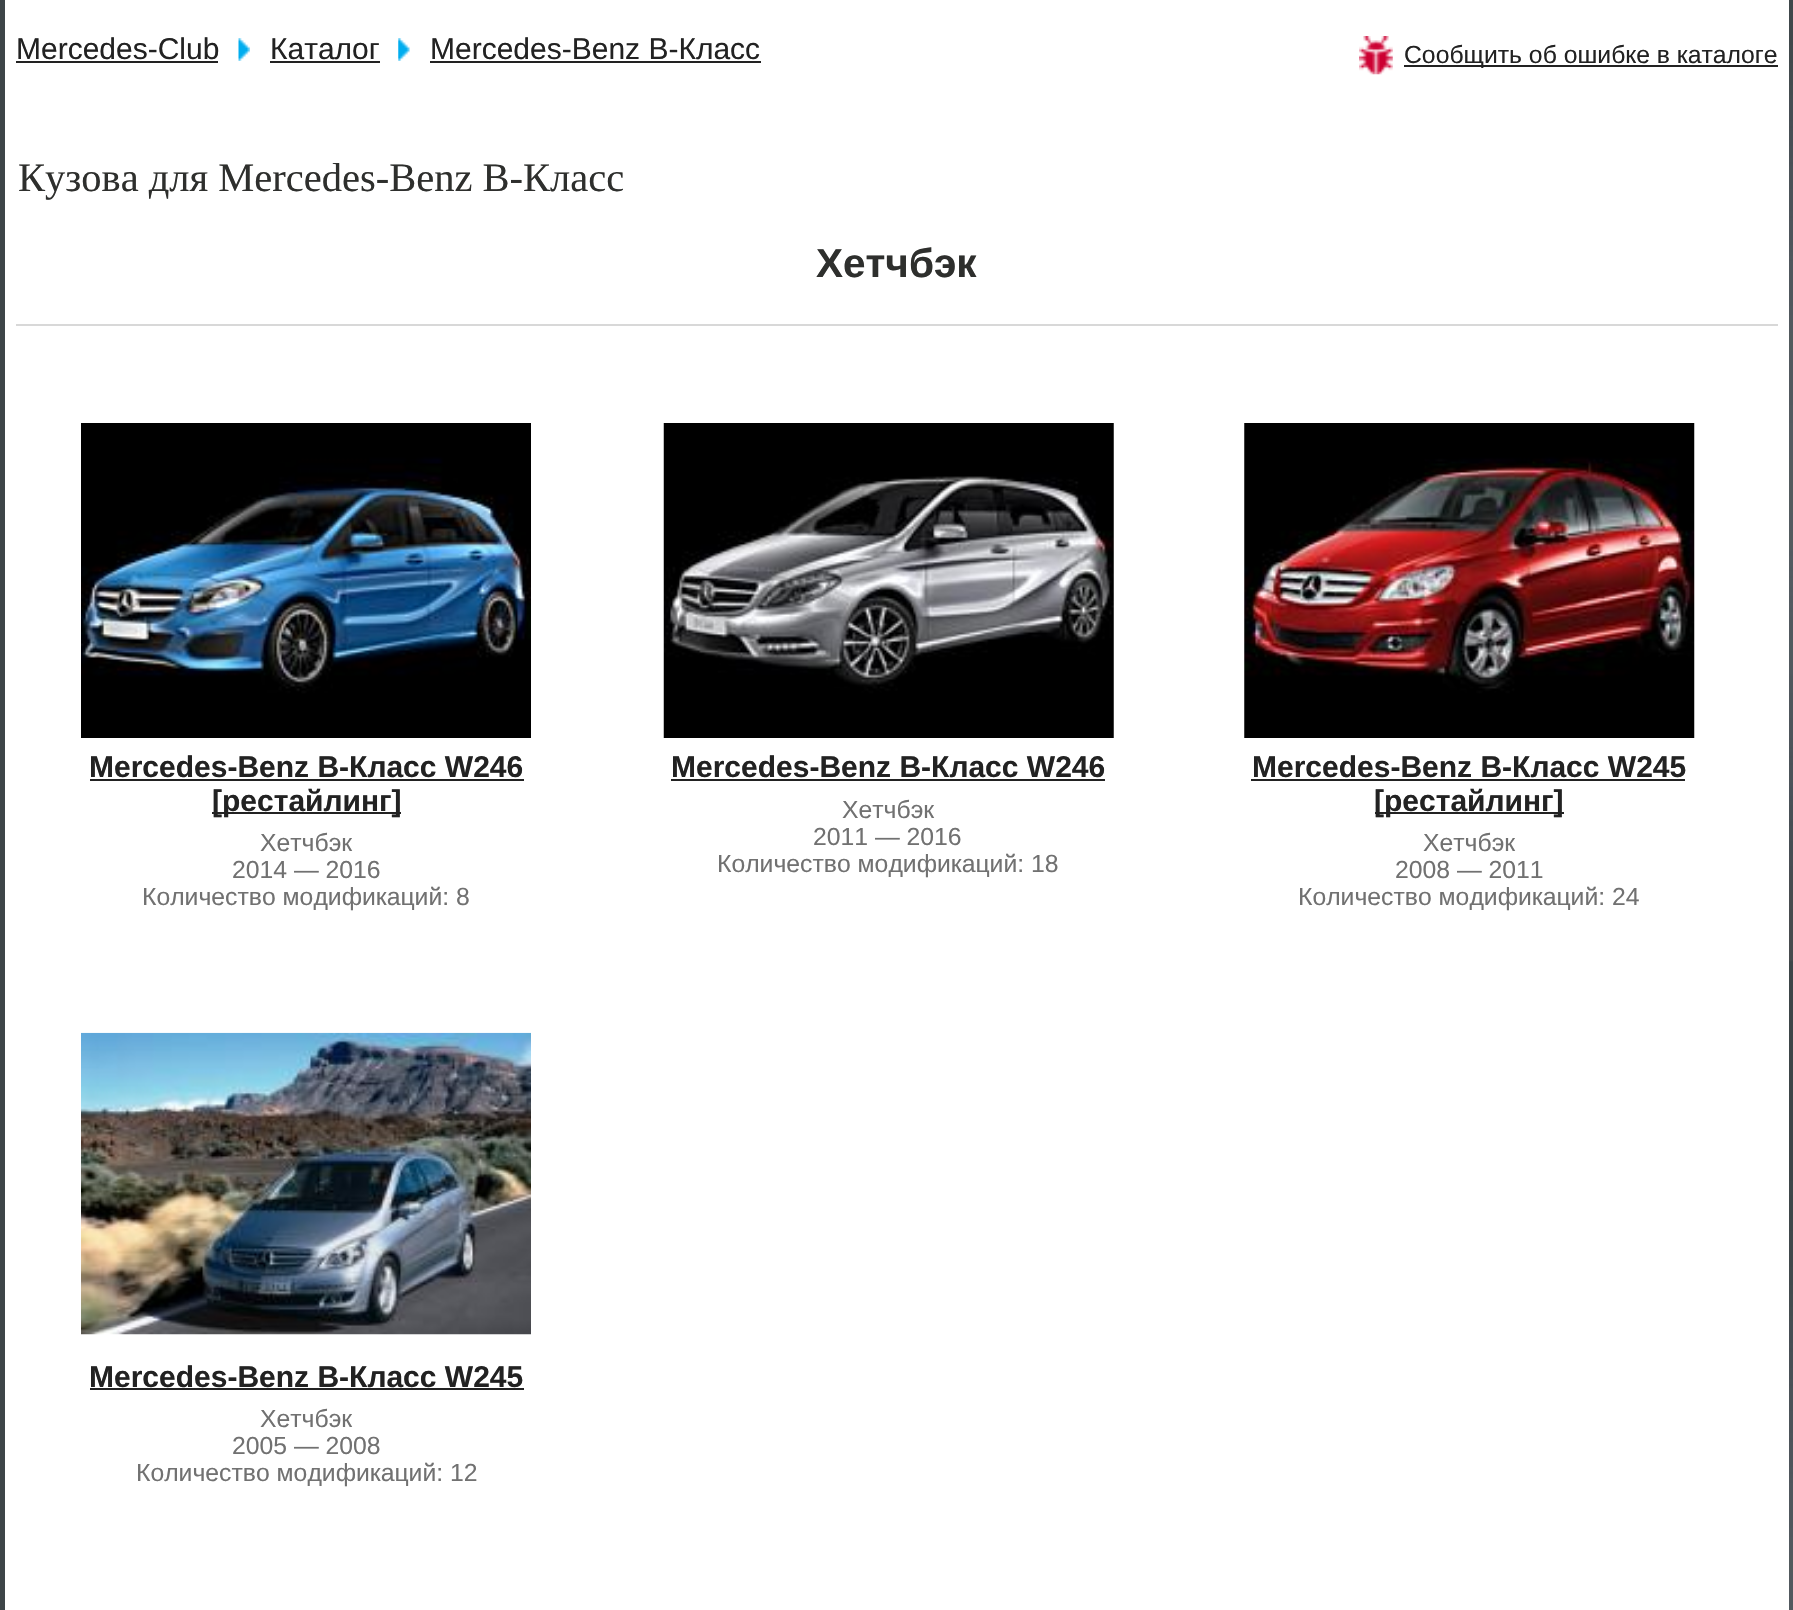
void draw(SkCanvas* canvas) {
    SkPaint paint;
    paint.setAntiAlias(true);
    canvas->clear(0xFFFFFFFF);
    canvas->drawImageRect(SkImages::DeferredFromEncodedData(SkData::MakeFromFileName("img1.png")), SkRect::MakeXYWH(0, 0, 1793, 1610), SkSamplingOptions());
    paint.setColor(0xFFFFFFFF);
    canvas->drawRect(SkRect::MakeXYWH(5, 0, 1784, 1610), paint);
    SkFont font1(fontMgr->matchFamilyStyle("Liberation Sans", SkFontStyle::Normal()), 30);
    font1.setSubpixel(true);
    paint.setColor(0xFF222222);
    canvas->drawString("Mercedes-Club", 16, 59, font1, paint);
    canvas->drawRect(SkRect::MakeXYWH(16, 61, 202, 2), paint);
    canvas->drawImageRect(SkImages::DeferredFromEncodedData(SkData::MakeFromFileName("img2.png")), SkRect::MakeXYWH(238, 38, 12, 23), SkSamplingOptions());
    canvas->drawString("Каталог", 270, 59, font1, paint);
    canvas->drawRect(SkRect::MakeXYWH(270, 61, 110, 2), paint);
    canvas->drawImageRect(SkImages::DeferredFromEncodedData(SkData::MakeFromFileName("img3.png")), SkRect::MakeXYWH(1359, 36, 34, 39), SkSamplingOptions());
    canvas->drawRect(SkRect::MakeXYWH(1404, 65, 374, 2), paint);
    SkFont font2(fontMgr->matchFamilyStyle("Liberation Sans", SkFontStyle::Normal()), 24.75f);
    font2.setSubpixel(true);
    canvas->drawString("Сообщить об ошибке в каталоге", 1404, 63, font2, paint);
    canvas->drawImageRect(SkImages::DeferredFromEncodedData(SkData::MakeFromFileName("img4.png")), SkRect::MakeXYWH(398, 38, 12, 23), SkSamplingOptions());
    canvas->drawString("Mercedes-Benz B-Класс", 430, 59, font1, paint);
    canvas->drawRect(SkRect::MakeXYWH(430, 61, 331, 2), paint);
    SkFont font3(fontMgr->matchFamilyStyle("Liberation Serif", SkFontStyle::Normal()), 40.5f);
    font3.setSubpixel(true);
    paint.setColor(0xFF2E2F2D);
    canvas->drawString("Кузова для Mercedes-Benz B-Класс", 18, 191, font3, paint);
    paint.setColor(0xFFD8D8D8);
    canvas->drawRect(SkRect::MakeXYWH(16, 324, 1762, 2), paint);
    SkFont font4(fontMgr->matchFamilyStyle("Liberation Sans", SkFontStyle::Bold()), 40.5f);
    font4.setSubpixel(true);
    paint.setColor(0xFF2E2F2D);
    canvas->drawString("Хетчбэк", 816, 277, font4, paint);
    canvas->drawImageRect(SkImages::DeferredFromEncodedData(SkData::MakeFromFileName("img5.png")), SkRect::MakeXYWH(81, 423, 450, 315), SkSamplingOptions());
    SkFont font5(fontMgr->matchFamilyStyle("Liberation Sans", SkFontStyle::Bold()), 30);
    font5.setSubpixel(true);
    paint.setColor(0xFF222222);
    canvas->drawString("Mercedes-Benz B-Класс W246", 89, 777, font5, paint);
    canvas->drawRect(SkRect::MakeXYWH(90, 779, 434, 2), paint);
    canvas->drawRect(SkRect::MakeXYWH(212, 812, 189, 2), paint);
    canvas->drawString("[рестайлинг]", 212, 811, font5, paint);
    paint.setColor(0xFF717171);
    canvas->drawString("Хетчбэк", 260, 851, font2, paint);
    canvas->drawString("2014 — 2016", 232, 878, font2, paint);
    canvas->drawString("Количество модификаций: 8", 142, 905, font2, paint);
    canvas->drawImageRect(SkImages::DeferredFromEncodedData(SkData::MakeFromFileName("img6.png")), SkRect::MakeXYWH(663, 423, 451, 315), SkSamplingOptions());
    paint.setColor(0xFF222222);
    canvas->drawString("Mercedes-Benz B-Класс W246", 671, 777, font5, paint);
    canvas->drawRect(SkRect::MakeXYWH(671, 779, 434, 2), paint);
    paint.setColor(0xFF717171);
    canvas->drawString("Хетчбэк", 842, 818, font2, paint);
    canvas->drawString("2011 — 2016", 813, 845, font2, paint);
    canvas->drawString("Количество модификаций: 18", 717, 872, font2, paint);
    canvas->drawImageRect(SkImages::DeferredFromEncodedData(SkData::MakeFromFileName("img7.png")), SkRect::MakeXYWH(1244, 423, 451, 315), SkSamplingOptions());
    paint.setColor(0xFF222222);
    canvas->drawString("Mercedes-Benz B-Класс W245", 1252, 777, font5, paint);
    canvas->drawRect(SkRect::MakeXYWH(1251, 779, 434, 2), paint);
    canvas->drawRect(SkRect::MakeXYWH(1375, 812, 189, 2), paint);
    canvas->drawString("[рестайлинг]", 1374, 811, font5, paint);
    paint.setColor(0xFF717171);
    canvas->drawString("Хетчбэк", 1423, 851, font2, paint);
    canvas->drawString("2008 — 2011", 1395, 878, font2, paint);
    canvas->drawString("Количество модификаций: 24", 1298, 905, font2, paint);
    canvas->drawImageRect(SkImages::DeferredFromEncodedData(SkData::MakeFromFileName("img8.png")), SkRect::MakeXYWH(81, 1032, 450, 303), SkSamplingOptions());
    paint.setColor(0xFF222222);
    canvas->drawString("Mercedes-Benz B-Класс W245", 89, 1387, font5, paint);
    canvas->drawRect(SkRect::MakeXYWH(90, 1388, 434, 2), paint);
    paint.setColor(0xFF717171);
    canvas->drawString("Хетчбэк", 260, 1427, font2, paint);
    canvas->drawString("2005 — 2008", 232, 1454, font2, paint);
    canvas->drawString("Количество модификаций: 12", 136, 1481, font2, paint);
}
